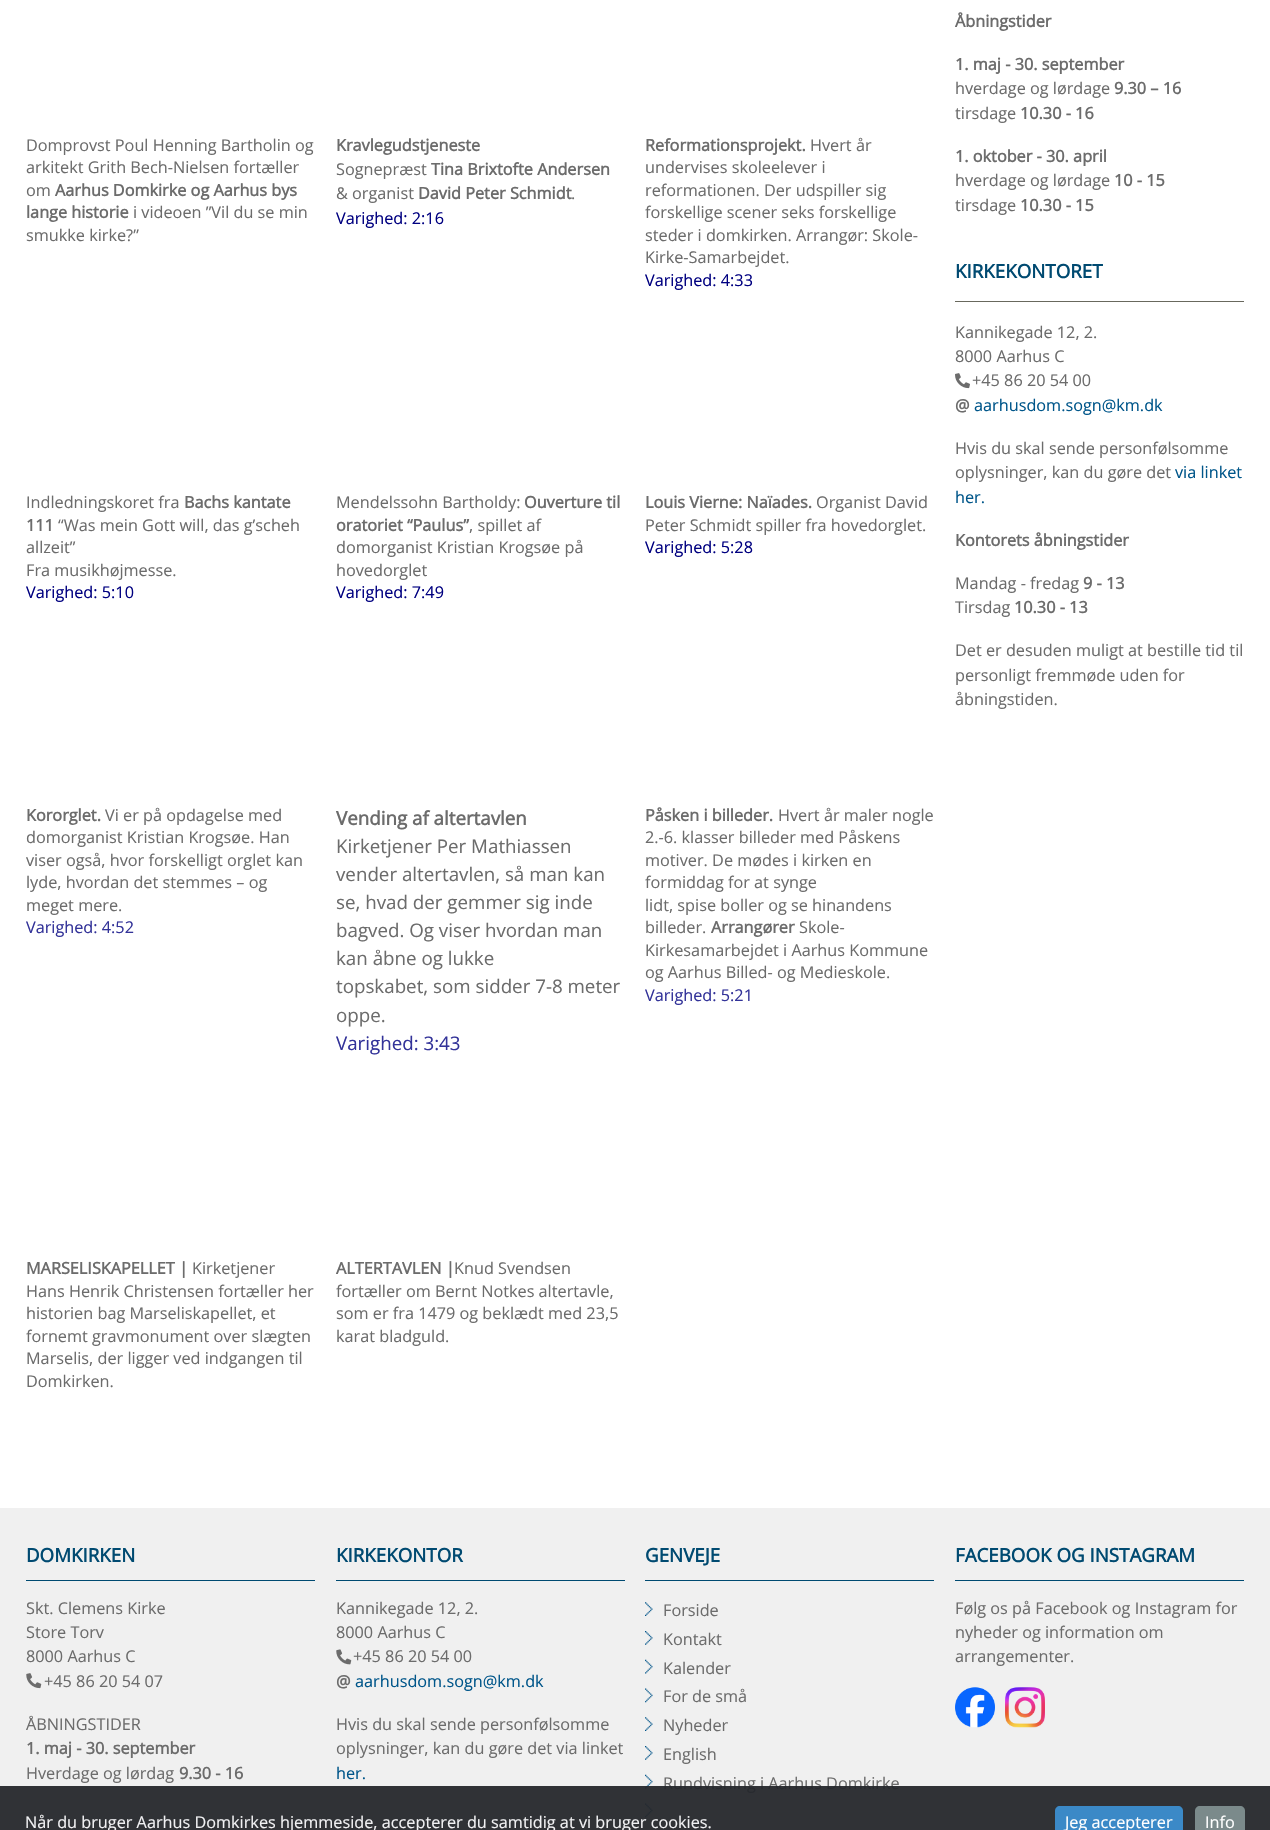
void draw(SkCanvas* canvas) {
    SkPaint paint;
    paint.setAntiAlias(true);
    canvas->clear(0xFFFFFFFF);
    SkFont font1(fontMgr->matchFamilyStyle("Open Sans", SkFontStyle::Normal()), 16.25f);
    font1.setSubpixel(true);
    paint.setColor(0xFF6C6C6C);
    canvas->drawString("Domprovst Poul Henning Bartholin og", 26, 151, font1, paint);
    canvas->drawString("arkitekt Grith Bech-Nielsen fortæller", 26, 173, font1, paint);
    canvas->drawString("om", 26, 196, font1, paint);
    SkFont font2(fontMgr->matchFamilyStyle("Open Sans", SkFontStyle::Bold()), 16.25f);
    font2.setSubpixel(true);
    canvas->drawString("Aarhus Domkirke og Aarhus bys", 55, 196, font2, paint);
    canvas->drawString("lange historie", 26, 218, font2, paint);
    canvas->drawString("i videoen ”Vil du se min", 133, 218, font1, paint);
    canvas->drawString("smukke kirke?”", 26, 241, font1, paint);
    canvas->drawString("Kravlegudstjeneste", 336, 151, font2, paint);
    canvas->drawString("Sognepræst", 336, 175, font1, paint);
    canvas->drawString("Tina Brixtofte Andersen", 431, 175, font2, paint);
    canvas->drawString("& organist", 336, 199, font1, paint);
    canvas->drawString("David Peter Schmidt", 418, 199, font2, paint);
    canvas->drawString(".", 571, 199, font1, paint);
    paint.setColor(0xFF000080);
    canvas->drawString("Varighed: 2:16", 336, 224, font1, paint);
    paint.setColor(0xFF6C6C6C);
    canvas->drawString("Reformationsprojekt.", 645, 151, font2, paint);
    canvas->drawString("Hvert år", 810, 151, font1, paint);
    canvas->drawString("undervises skoleelever i", 645, 173, font1, paint);
    canvas->drawString("reformationen. Der udspiller sig", 645, 196, font1, paint);
    canvas->drawString("forskellige scener seks forskellige", 645, 218, font1, paint);
    canvas->drawString("steder i domkirken. Arrangør: Skole-", 645, 241, font1, paint);
    canvas->drawString("Kirke-Samarbejdet.", 645, 263, font1, paint);
    paint.setColor(0xFF000080);
    canvas->drawString("Varighed: 4:33", 645, 286, font1, paint);
    paint.setColor(0xFF6C6C6C);
    canvas->drawString("Indledningskoret fra", 26, 508, font1, paint);
    canvas->drawString("Bachs kantate", 184, 508, font2, paint);
    canvas->drawString("111", 26, 531, font2, paint);
    canvas->drawString("“Was mein Gott will, das g’scheh", 58, 531, font1, paint);
    canvas->drawString("allzeit”", 26, 553, font1, paint);
    canvas->drawString("Fra musikhøjmesse.", 26, 576, font1, paint);
    paint.setColor(0xFF000080);
    canvas->drawString("Varighed: 5:10", 26, 598, font1, paint);
    paint.setColor(0xFF6C6C6C);
    canvas->drawString("Mendelssohn Bartholdy:", 336, 508, font1, paint);
    canvas->drawString("Ouverture til", 524, 508, font2, paint);
    canvas->drawString("oratoriet “Paulus”", 336, 531, font2, paint);
    canvas->drawString(", spillet af", 469, 531, font1, paint);
    canvas->drawString("domorganist Kristian Krogsøe på", 336, 553, font1, paint);
    canvas->drawString("hovedorglet", 336, 576, font1, paint);
    paint.setColor(0xFF000080);
    canvas->drawString("Varighed: 7:49", 336, 598, font1, paint);
    paint.setColor(0xFF6C6C6C);
    canvas->drawString("Louis Vierne: Naïades.", 645, 508, font2, paint);
    canvas->drawString("Organist David", 816, 508, font1, paint);
    canvas->drawString("Peter Schmidt spiller fra hovedorglet.", 645, 531, font1, paint);
    paint.setColor(0xFF000080);
    canvas->drawString("Varighed: 5:28", 645, 553, font1, paint);
    paint.setColor(0xFF6C6C6C);
    canvas->drawString("Kororglet.", 26, 821, font2, paint);
    canvas->drawString("Vi er på opdagelse med", 105, 821, font1, paint);
    canvas->drawString("domorganist Kristian Krogsøe. Han", 26, 843, font1, paint);
    canvas->drawString("viser også, hvor forskelligt orglet kan", 26, 866, font1, paint);
    canvas->drawString("lyde, hvordan det stemmes – og", 26, 888, font1, paint);
    canvas->drawString("meget mere.", 26, 911, font1, paint);
    paint.setColor(0xFF333399);
    canvas->drawString("Varighed: 4:52", 26, 933, font1, paint);
    SkFont font3(fontMgr->matchFamilyStyle("Open Sans", SkFontStyle::Bold()), 18.75f);
    font3.setSubpixel(true);
    paint.setColor(0xFF6C6C6C);
    canvas->drawString("Vending af altertavlen", 336, 825, font3, paint);
    SkFont font4(fontMgr->matchFamilyStyle("Open Sans", SkFontStyle::Normal()), 18.75f);
    font4.setSubpixel(true);
    canvas->drawString("Kirketjener Per Mathiassen", 336, 853, font4, paint);
    canvas->drawString("vender altertavlen, så man kan", 336, 881, font4, paint);
    canvas->drawString("se, hvad der gemmer sig inde", 336, 909, font4, paint);
    canvas->drawString("bagved. Og viser hvordan man", 336, 937, font4, paint);
    canvas->drawString("kan åbne og lukke", 336, 965, font4, paint);
    canvas->drawString("topskabet, som sidder 7-8 meter", 336, 993, font4, paint);
    canvas->drawString("oppe.", 336, 1022, font4, paint);
    paint.setColor(0xFF333399);
    canvas->drawString("Varighed: 3:43", 336, 1050, font4, paint);
    paint.setColor(0xFF6C6C6C);
    canvas->drawString("Påsken i billeder.", 645, 821, font2, paint);
    canvas->drawString("Hvert år maler nogle", 778, 821, font1, paint);
    canvas->drawString("2.-6. klasser billeder med Påskens", 645, 843, font1, paint);
    canvas->drawString("motiver. De mødes i kirken en", 645, 866, font1, paint);
    canvas->drawString("formiddag for at synge", 645, 888, font1, paint);
    canvas->drawString("lidt, spise boller og se hinandens", 645, 911, font1, paint);
    canvas->drawString("billeder.", 645, 933, font1, paint);
    canvas->drawString("Arrangører", 711, 933, font2, paint);
    canvas->drawString("Skole-", 799, 933, font1, paint);
    canvas->drawString("Kirkesamarbejdet i Aarhus Kommune", 645, 956, font1, paint);
    canvas->drawString("og Aarhus Billed- og Medieskole.", 645, 978, font1, paint);
    paint.setColor(0xFF333399);
    canvas->drawString("Varighed: 5:21", 645, 1001, font1, paint);
    paint.setColor(0xFF6C6C6C);
    canvas->drawString("MARSELISKAPELLET |", 26, 1274, font2, paint);
    canvas->drawString("Kirketjener", 192, 1274, font1, paint);
    canvas->drawString("Hans Henrik Christensen fortæller her", 26, 1297, font1, paint);
    canvas->drawString("historien bag Marseliskapellet, et", 26, 1319, font1, paint);
    canvas->drawString("fornemt gravmonument over slægten", 26, 1342, font1, paint);
    canvas->drawString("Marselis, der ligger ved indgangen til", 26, 1364, font1, paint);
    canvas->drawString("Domkirken.", 26, 1387, font1, paint);
    canvas->drawString("ALTERTAVLEN |", 336, 1274, font2, paint);
    canvas->drawString("Knud Svendsen", 454, 1274, font1, paint);
    canvas->drawString("fortæller om Bernt Notkes altertavle,", 336, 1297, font1, paint);
    canvas->drawString("som er fra 1479 og beklædt med 23,5", 336, 1319, font1, paint);
    canvas->drawString("karat bladguld.", 336, 1342, font1, paint);
    canvas->drawString("Åbningstider", 955, 27, font2, paint);
    canvas->drawString("1. maj - 30. september", 955, 70, font2, paint);
    canvas->drawString("hverdage og lørdage", 955, 94, font1, paint);
    canvas->drawString("9.30 – 16", 1114, 94, font2, paint);
    canvas->drawString("tirsdage", 955, 119, font1, paint);
    canvas->drawString("10.30 - 16", 1020, 119, font2, paint);
    canvas->drawString("1. oktober - 30. april", 955, 162, font2, paint);
    canvas->drawString("hverdage og lørdage", 955, 186, font1, paint);
    canvas->drawString("10 - 15", 1114, 186, font2, paint);
    canvas->drawString("tirsdage", 955, 211, font1, paint);
    canvas->drawString("10.30 - 15", 1020, 211, font2, paint);
    paint.setColor(0xFF68685D);
    canvas->drawRect(SkRect::MakeXYWH(955, 301, 289, 1), paint);
    paint.setColor(0xFF004A71);
    canvas->drawString("KIRKEKONTORET", 955, 278, font3, paint);
    paint.setColor(0xFF6C6C6C);
    canvas->drawString("Kannikegade 12, 2.", 955, 338, font1, paint);
    canvas->drawString("8000 Aarhus C", 955, 362, font1, paint);
    canvas->drawImageRect(SkImages::DeferredFromEncodedData(SkData::MakeFromFileName("img1.png")), SkRect::MakeXYWH(955, 373, 15, 16), SkSamplingOptions());
    canvas->drawString("+45 86 20 54 00", 972, 386, font1, paint);
    canvas->drawString("@", 955, 411, font2, paint);
    paint.setColor(0xFF00568A);
    canvas->drawString("aarhusdom.sogn@km.dk", 974, 411, font1, paint);
    paint.setColor(0xFF6C6C6C);
    canvas->drawString("Hvis du skal sende personfølsomme", 955, 454, font1, paint);
    canvas->drawString("oplysninger, kan du gøre det", 955, 478, font1, paint);
    paint.setColor(0xFF00568A);
    canvas->drawString("via linket", 1175, 478, font1, paint);
    canvas->drawString("her.", 955, 503, font1, paint);
    paint.setColor(0xFF6C6C6C);
    canvas->drawString("Kontorets åbningstider", 955, 546, font2, paint);
    canvas->drawString("Mandag - fredag", 955, 589, font1, paint);
    canvas->drawString("9 - 13", 1083, 589, font2, paint);
    canvas->drawString("Tirsdag", 955, 613, font1, paint);
    canvas->drawString("10.30 - 13", 1014, 613, font2, paint);
    canvas->drawString("Det er desuden muligt at bestille tid til", 955, 656, font1, paint);
    canvas->drawString("personligt fremmøde uden for", 955, 681, font1, paint);
    canvas->drawString("åbningstiden.", 955, 705, font1, paint);
    paint.setColor(0xFFF0F0F0);
    canvas->drawRect(SkRect::MakeXYWH(0, 1508, 1270, 322), paint);
    paint.setColor(0xFF004A71);
    canvas->drawRect(SkRect::MakeXYWH(26, 1580, 289, 1), paint);
    canvas->drawString("DOMKIRKEN", 26, 1562, font3, paint);
    paint.setColor(0xFF6C6C6C);
    canvas->drawString("Skt. Clemens Kirke", 26, 1614, font1, paint);
    canvas->drawString("Store Torv", 26, 1638, font1, paint);
    canvas->drawString("8000 Aarhus C", 26, 1662, font1, paint);
    canvas->drawImageRect(SkImages::DeferredFromEncodedData(SkData::MakeFromFileName("img2.png")), SkRect::MakeXYWH(26, 1673, 16, 16), SkSamplingOptions());
    canvas->drawString("+45 86 20 54 07", 44, 1687, font1, paint);
    canvas->drawString("ÅBNINGSTIDER", 26, 1730, font1, paint);
    canvas->drawString("1. maj - 30. september", 26, 1754, font2, paint);
    canvas->drawString("Hverdage og lørdag", 26, 1779, font1, paint);
    canvas->drawString("9.30 - 16", 179, 1779, font2, paint);
    paint.setColor(0xFF004A71);
    canvas->drawRect(SkRect::MakeXYWH(336, 1580, 289, 1), paint);
    canvas->drawString("KIRKEKONTOR", 336, 1562, font3, paint);
    paint.setColor(0xFF6C6C6C);
    canvas->drawString("Kannikegade 12, 2.", 336, 1614, font1, paint);
    canvas->drawString("8000 Aarhus C", 336, 1638, font1, paint);
    canvas->drawImageRect(SkImages::DeferredFromEncodedData(SkData::MakeFromFileName("img3.png")), SkRect::MakeXYWH(336, 1649, 16, 16), SkSamplingOptions());
    canvas->drawString("+45 86 20 54 00", 353, 1662, font1, paint);
    canvas->drawString("@", 336, 1687, font2, paint);
    paint.setColor(0xFF00568A);
    canvas->drawString("aarhusdom.sogn@km.dk", 355, 1687, font1, paint);
    paint.setColor(0xFF6C6C6C);
    canvas->drawString("Hvis du skal sende personfølsomme", 336, 1730, font1, paint);
    canvas->drawString("oplysninger, kan du gøre det via linket", 336, 1754, font1, paint);
    paint.setColor(0xFF00568A);
    canvas->drawString("her.", 336, 1779, font1, paint);
    paint.setColor(0xFF004A71);
    canvas->drawRect(SkRect::MakeXYWH(645, 1580, 289, 1), paint);
    canvas->drawString("GENVEJE", 645, 1562, font3, paint);
    canvas->drawImageRect(SkImages::DeferredFromEncodedData(SkData::MakeFromFileName("img4.png")), SkRect::MakeXYWH(645, 1602, 8, 14), SkSamplingOptions());
    paint.setColor(0xFF6C6C6C);
    canvas->drawString("Forside", 663, 1616, font1, paint);
    canvas->drawImageRect(SkImages::DeferredFromEncodedData(SkData::MakeFromFileName("img5.png")), SkRect::MakeXYWH(645, 1631, 8, 14), SkSamplingOptions());
    canvas->drawString("Kontakt", 663, 1645, font1, paint);
    canvas->drawImageRect(SkImages::DeferredFromEncodedData(SkData::MakeFromFileName("img6.png")), SkRect::MakeXYWH(645, 1659, 8, 15), SkSamplingOptions());
    canvas->drawString("Kalender", 663, 1674, font1, paint);
    canvas->drawImageRect(SkImages::DeferredFromEncodedData(SkData::MakeFromFileName("img7.png")), SkRect::MakeXYWH(645, 1688, 8, 15), SkSamplingOptions());
    canvas->drawString("For de små", 663, 1702, font1, paint);
    canvas->drawImageRect(SkImages::DeferredFromEncodedData(SkData::MakeFromFileName("img4.png")), SkRect::MakeXYWH(645, 1717, 8, 14), SkSamplingOptions());
    canvas->drawString("Nyheder", 663, 1731, font1, paint);
    canvas->drawImageRect(SkImages::DeferredFromEncodedData(SkData::MakeFromFileName("img5.png")), SkRect::MakeXYWH(645, 1746, 8, 14), SkSamplingOptions());
    canvas->drawString("English", 663, 1760, font1, paint);
    canvas->drawImageRect(SkImages::DeferredFromEncodedData(SkData::MakeFromFileName("img6.png")), SkRect::MakeXYWH(645, 1774, 8, 15), SkSamplingOptions());
    canvas->drawString("Rundvisning i Aarhus Domkirke", 663, 1789, font1, paint);
    canvas->drawImageRect(SkImages::DeferredFromEncodedData(SkData::MakeFromFileName("img7.png")), SkRect::MakeXYWH(645, 1803, 8, 15), SkSamplingOptions());
    paint.setColor(0xFF004A71);
    canvas->drawRect(SkRect::MakeXYWH(955, 1580, 289, 1), paint);
    canvas->drawString("FACEBOOK OG INSTAGRAM", 955, 1562, font3, paint);
    paint.setColor(0xFF6C6C6C);
    canvas->drawString("Følg os på Facebook og Instagram for", 955, 1614, font1, paint);
    canvas->drawString("nyheder og information om", 955, 1638, font1, paint);
    canvas->drawString("arrangementer.", 955, 1662, font1, paint);
    canvas->drawImageRect(SkImages::DeferredFromEncodedData(SkData::MakeFromFileName("img8.png")), SkRect::MakeXYWH(955, 1687, 40, 41), SkSamplingOptions());
    canvas->drawImageRect(SkImages::DeferredFromEncodedData(SkData::MakeFromFileName("img9.png")), SkRect::MakeXYWH(1005, 1687, 40, 41), SkSamplingOptions());
    paint.setColor(0xB3323A45);
    canvas->drawRect(SkRect::MakeXYWH(0, 1786, 1270, 44), paint);
    paint.setColor(0xCC202226);
    canvas->drawRect(SkRect::MakeXYWH(0, 1786, 1270, 44), paint);
    paint.setColor(0xFFF1F1F3);
    canvas->drawString("Når du bruger Aarhus Domkirkes hjemmeside, accepterer du samtidig at vi bruger cookies.", 25, 1828, font1, paint);
    paint.setColor(0xFF3B89C7);
    canvas->drawPath(SkPathBuilder().moveTo(1060, 1806).lineTo(1178, 1806).cubicTo(1181, 1806, 1183, 1808, 1183, 1811).lineTo(1183, 1830).lineTo(1055, 1830).lineTo(1055, 1811).cubicTo(1055, 1808, 1057, 1806, 1060, 1806).close().detach(), paint);
    paint.setColor(0xFFFFFFFF);
    canvas->drawString("Jeg accepterer", 1065, 1828, font1, paint);
    paint.setColor(0xFF7B8A8B);
    canvas->drawPath(SkPathBuilder().moveTo(1200, 1806).lineTo(1240, 1806).cubicTo(1243, 1806, 1245, 1808, 1245, 1811).lineTo(1245, 1830).lineTo(1195, 1830).lineTo(1195, 1811).cubicTo(1195, 1808, 1197, 1806, 1200, 1806).close().detach(), paint);
    paint.setColor(0xFFFFFFFF);
    canvas->drawString("Info", 1205, 1828, font1, paint);
}
